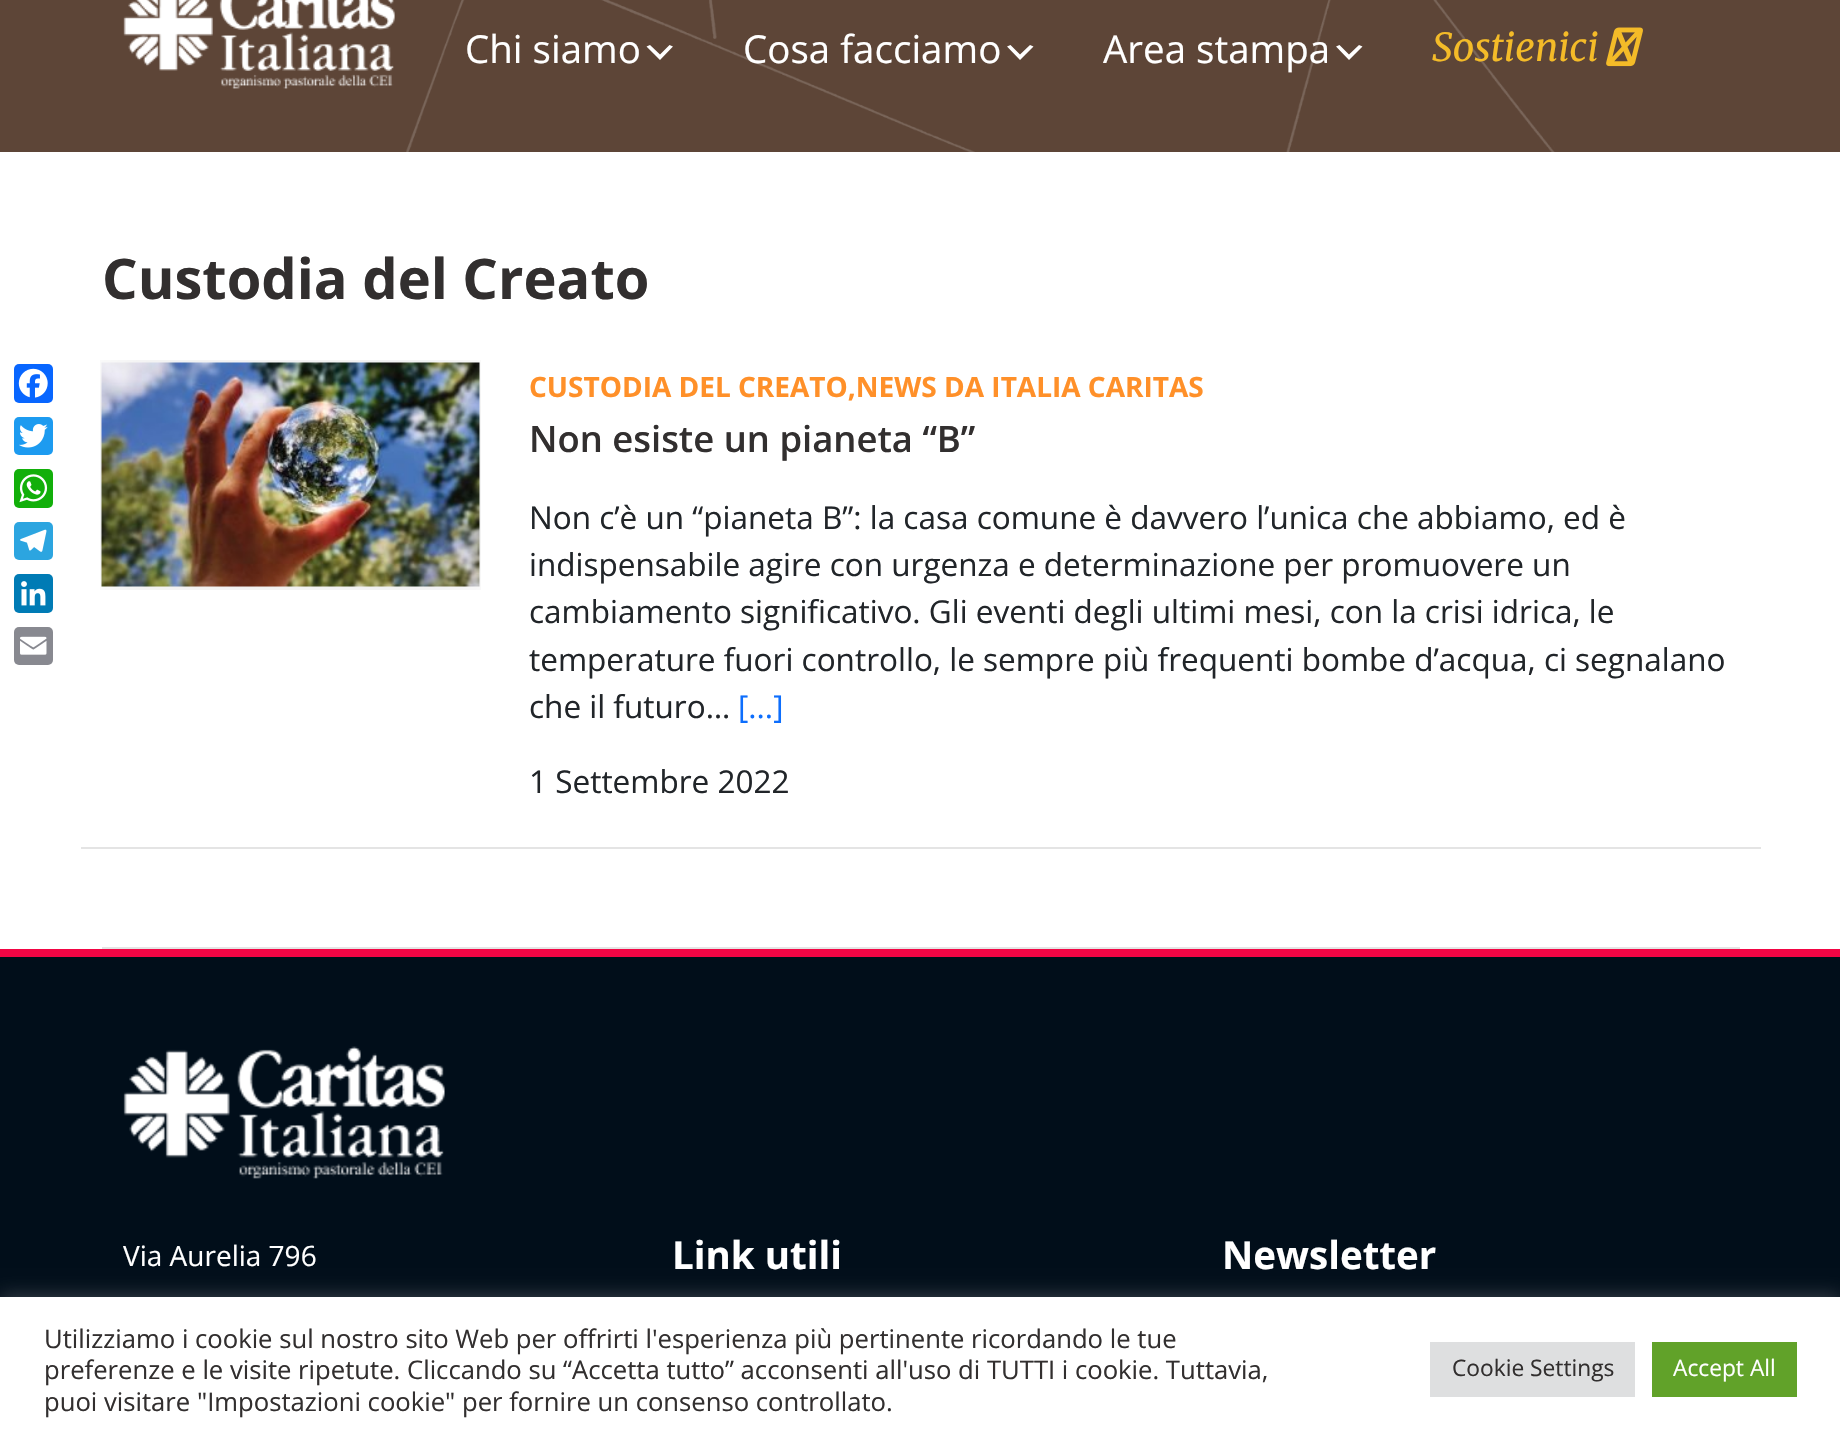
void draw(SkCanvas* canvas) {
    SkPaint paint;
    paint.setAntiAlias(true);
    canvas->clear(0xFFFFFFFF);
    paint.setColor(0xFF5D4537);
    canvas->drawRect(SkRect::MakeXYWH(0, 0, 1840, 152), paint);
    canvas->drawImageRect(SkImages::DeferredFromEncodedData(SkData::MakeFromFileName("img1.png")), SkRect::MakeXYWH(123, 0, 272, 89), SkSamplingOptions());
    canvas->drawImageRect(SkImages::DeferredFromEncodedData(SkData::MakeFromFileName("img2.png")), SkRect::MakeXYWH(406, 0, 1149, 152), SkSamplingOptions());
    SkFont font1(fontMgr->matchFamilyStyle("Open Sans", SkFontStyle::Normal()), 38.5f);
    font1.setSubpixel(true);
    paint.setColor(0xFFFFFFFF);
    canvas->drawString("Chi siamo", 465, 63, font1, paint);
    canvas->drawPath(SkPathBuilder().moveTo(650, 45).lineTo(660, 54.5f).lineTo(669.5f, 45).lineTo(673, 46.5f).lineTo(660, 60).lineTo(646.5f, 46.5f).close().detach(), paint);
    canvas->drawString("Cosa facciamo", 743, 63, font1, paint);
    canvas->drawPath(SkPathBuilder().moveTo(1010.5f, 45).lineTo(1020, 54.5f).lineTo(1030, 45).lineTo(1033.5f, 46.5f).lineTo(1020, 60).lineTo(1007, 46.5f).close().detach(), paint);
    canvas->drawString("Area stampa", 1103, 63, font1, paint);
    canvas->drawPath(SkPathBuilder().moveTo(1339.5f, 45).lineTo(1349, 54.5f).lineTo(1359, 45).lineTo(1362.5f, 46.5f).lineTo(1349, 60).lineTo(1336, 46.5f).close().detach(), paint);
    SkFont font2(fontMgr->matchFamilyStyle("Merriweather", SkFontStyle::Italic()), 38.5f);
    font2.setSubpixel(true);
    paint.setColor(0xFFF4BB28);
    canvas->drawString("Sostienici", 1432, 61, font2, paint);
    canvas->drawImageRect(SkImages::DeferredFromEncodedData(SkData::MakeFromFileName("img3.png")), SkRect::MakeXYWH(1606, 27, 37, 40), SkSamplingOptions());
    paint.setColor(0xFF0866FF);
    canvas->drawRoundRect(SkRect::MakeXYWH(14, 364, 39, 39), 5, 5, paint);
    canvas->drawImageRect(SkImages::DeferredFromEncodedData(SkData::MakeFromFileName("img4.png")), SkRect::MakeXYWH(18, 368, 30, 30), SkSamplingOptions());
    paint.setColor(0xFF1D9BF0);
    canvas->drawRoundRect(SkRect::MakeXYWH(14, 417, 39, 38), 5, 5, paint);
    canvas->drawImageRect(SkImages::DeferredFromEncodedData(SkData::MakeFromFileName("img5.png")), SkRect::MakeXYWH(19, 424, 29, 24), SkSamplingOptions());
    paint.setColor(0xFF12AF0A);
    canvas->drawRoundRect(SkRect::MakeXYWH(14, 469, 39, 39), 5, 5, paint);
    canvas->drawImageRect(SkImages::DeferredFromEncodedData(SkData::MakeFromFileName("img6.png")), SkRect::MakeXYWH(19, 474, 29, 29), SkSamplingOptions());
    paint.setColor(0xFF2CA5E0);
    canvas->drawRoundRect(SkRect::MakeXYWH(14, 522, 39, 38), 5, 5, paint);
    canvas->drawImageRect(SkImages::DeferredFromEncodedData(SkData::MakeFromFileName("img7.png")), SkRect::MakeXYWH(20, 529, 27, 23), SkSamplingOptions());
    paint.setColor(0xFF007BB5);
    canvas->drawRoundRect(SkRect::MakeXYWH(14, 574, 39, 39), 5, 5, paint);
    canvas->drawImageRect(SkImages::DeferredFromEncodedData(SkData::MakeFromFileName("img8.png")), SkRect::MakeXYWH(21, 581, 25, 25), SkSamplingOptions());
    paint.setColor(0xFF888990);
    canvas->drawRoundRect(SkRect::MakeXYWH(14, 627, 39, 38), 5, 5, paint);
    canvas->drawImageRect(SkImages::DeferredFromEncodedData(SkData::MakeFromFileName("img9.png")), SkRect::MakeXYWH(20, 636, 27, 19), SkSamplingOptions());
    SkFont font3(fontMgr->matchFamilyStyle("Open Sans", SkFontStyle::Bold()), 56);
    font3.setSubpixel(true);
    paint.setColor(0xFF322F2F);
    canvas->drawString("Custodia del Creato", 102, 299, font3, paint);
    paint.setColor(0xFFE4E4E4);
    canvas->drawRect(SkRect::MakeXYWH(102, 947, 1638, 2), paint);
    canvas->drawRect(SkRect::MakeXYWH(81, 847, 1680, 2), paint);
    canvas->drawImageRect(SkImages::DeferredFromEncodedData(SkData::MakeFromFileName("img10.png")), SkRect::MakeXYWH(100, 360, 381, 230), SkSamplingOptions());
    SkFont font4(fontMgr->matchFamilyStyle("Open Sans", SkFontStyle::Bold()), 28);
    font4.setSubpixel(true);
    paint.setColor(0xFFFF9029);
    canvas->drawString("CUSTODIA DEL CREATO,NEWS DA ITALIA CARITAS", 529, 397, font4, paint);
    SkFont font5(fontMgr->matchFamilyStyle("Open Sans", SkFontStyle(600, SkFontStyle::kNormal_Width, SkFontStyle::kUpright_Slant)), 36.4f);
    font5.setSubpixel(true);
    paint.setColor(0xFF322F2F);
    canvas->drawString("Non esiste un pianeta “B”", 529, 452, font5, paint);
    SkFont font6(fontMgr->matchFamilyStyle("Open Sans", SkFontStyle::Normal()), 31.5f);
    font6.setSubpixel(true);
    paint.setColor(0xFF212529);
    canvas->drawString("Non c’è un “pianeta B”: la casa comune è davvero l’unica che abbiamo, ed è", 529, 529, font6, paint);
    canvas->drawString("indispensabile agire con urgenza e determinazione per promuovere un", 529, 576, font6, paint);
    canvas->drawString("cambiamento significativo. Gli eventi degli ultimi mesi, con la crisi idrica, le", 529, 623, font6, paint);
    canvas->drawString("temperature fuori controllo, le sempre più frequenti bombe d’acqua, ci segnalano", 529, 671, font6, paint);
    canvas->drawString("che il futuro…", 529, 718, font6, paint);
    paint.setColor(0xFF0D6EFD);
    canvas->drawString("[...]", 738, 718, font6, paint);
    paint.setColor(0xFF212529);
    canvas->drawString("1 Settembre 2022", 529, 793, font6, paint);
    paint.setColor(0xFF010E1A);
    canvas->drawRect(SkRect::MakeXYWH(0, 957, 1840, 340), paint);
    paint.setColor(0xFFF20544);
    canvas->drawRect(SkRect::MakeXYWH(0, 949, 1840, 8), paint);
    canvas->drawImageRect(SkImages::DeferredFromEncodedData(SkData::MakeFromFileName("img11.png")), SkRect::MakeXYWH(123, 1046, 322, 133), SkSamplingOptions());
    SkFont font7(fontMgr->matchFamilyStyle("Open Sans", SkFontStyle::Normal()), 28);
    font7.setSubpixel(true);
    paint.setColor(0xFFFFFFFF);
    canvas->drawString("Via Aurelia 796", 123, 1266, font7, paint);
    SkFont font8(fontMgr->matchFamilyStyle("Open Sans", SkFontStyle::Bold()), 38.5f);
    font8.setSubpixel(true);
    canvas->drawString("Link utili", 672, 1269, font8, paint);
    canvas->drawString("Newsletter", 1222, 1269, font8, paint);
    paint.setColor(0x4DACABAB);
    paint.setMaskFilter(SkMaskFilter::MakeBlur(kNormal_SkBlurStyle, 9));
    canvas->drawRect(SkRect::MakeXYWH(0, 1295, 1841, 144), paint);
    paint.setMaskFilter(nullptr);
    paint.setColor(0xFFFFFFFF);
    canvas->drawRect(SkRect::MakeXYWH(0, 1297, 1840, 143), paint);
    SkFont font9(fontMgr->matchFamilyStyle("Open Sans", SkFontStyle::Normal()), 25.65f);
    font9.setSubpixel(true);
    paint.setColor(0xFF322F2F);
    canvas->drawString("Utilizziamo i cookie sul nostro sito Web per offrirti l'esperienza più pertinente ricordando le tue", 44, 1348, font9, paint);
    canvas->drawString("preferenze e le visite ripetute. Cliccando su “Accetta tutto” acconsenti all'uso di TUTTI i cookie. Tuttavia,", 44, 1379, font9, paint);
    canvas->drawString("puoi visitare \"Impostazioni cookie\" per fornire un consenso controllato.", 44, 1411, font9, paint);
    paint.setColor(0xFFDEDFE0);
    canvas->drawRect(SkRect::MakeXYWH(1430, 1342, 205, 55), paint);
    SkFont font10(fontMgr->matchFamilyStyle("Open Sans", SkFontStyle::Normal()), 22.75f);
    font10.setSubpixel(true);
    paint.setColor(0xFF322F2F);
    canvas->drawString("Cookie Settings", 1452, 1376, font10, paint);
    paint.setColor(0xFF61A229);
    canvas->drawRect(SkRect::MakeXYWH(1652, 1342, 145, 55), paint);
    paint.setColor(0xFFFFFFFF);
    canvas->drawString("Accept All", 1673, 1376, font10, paint);
}
